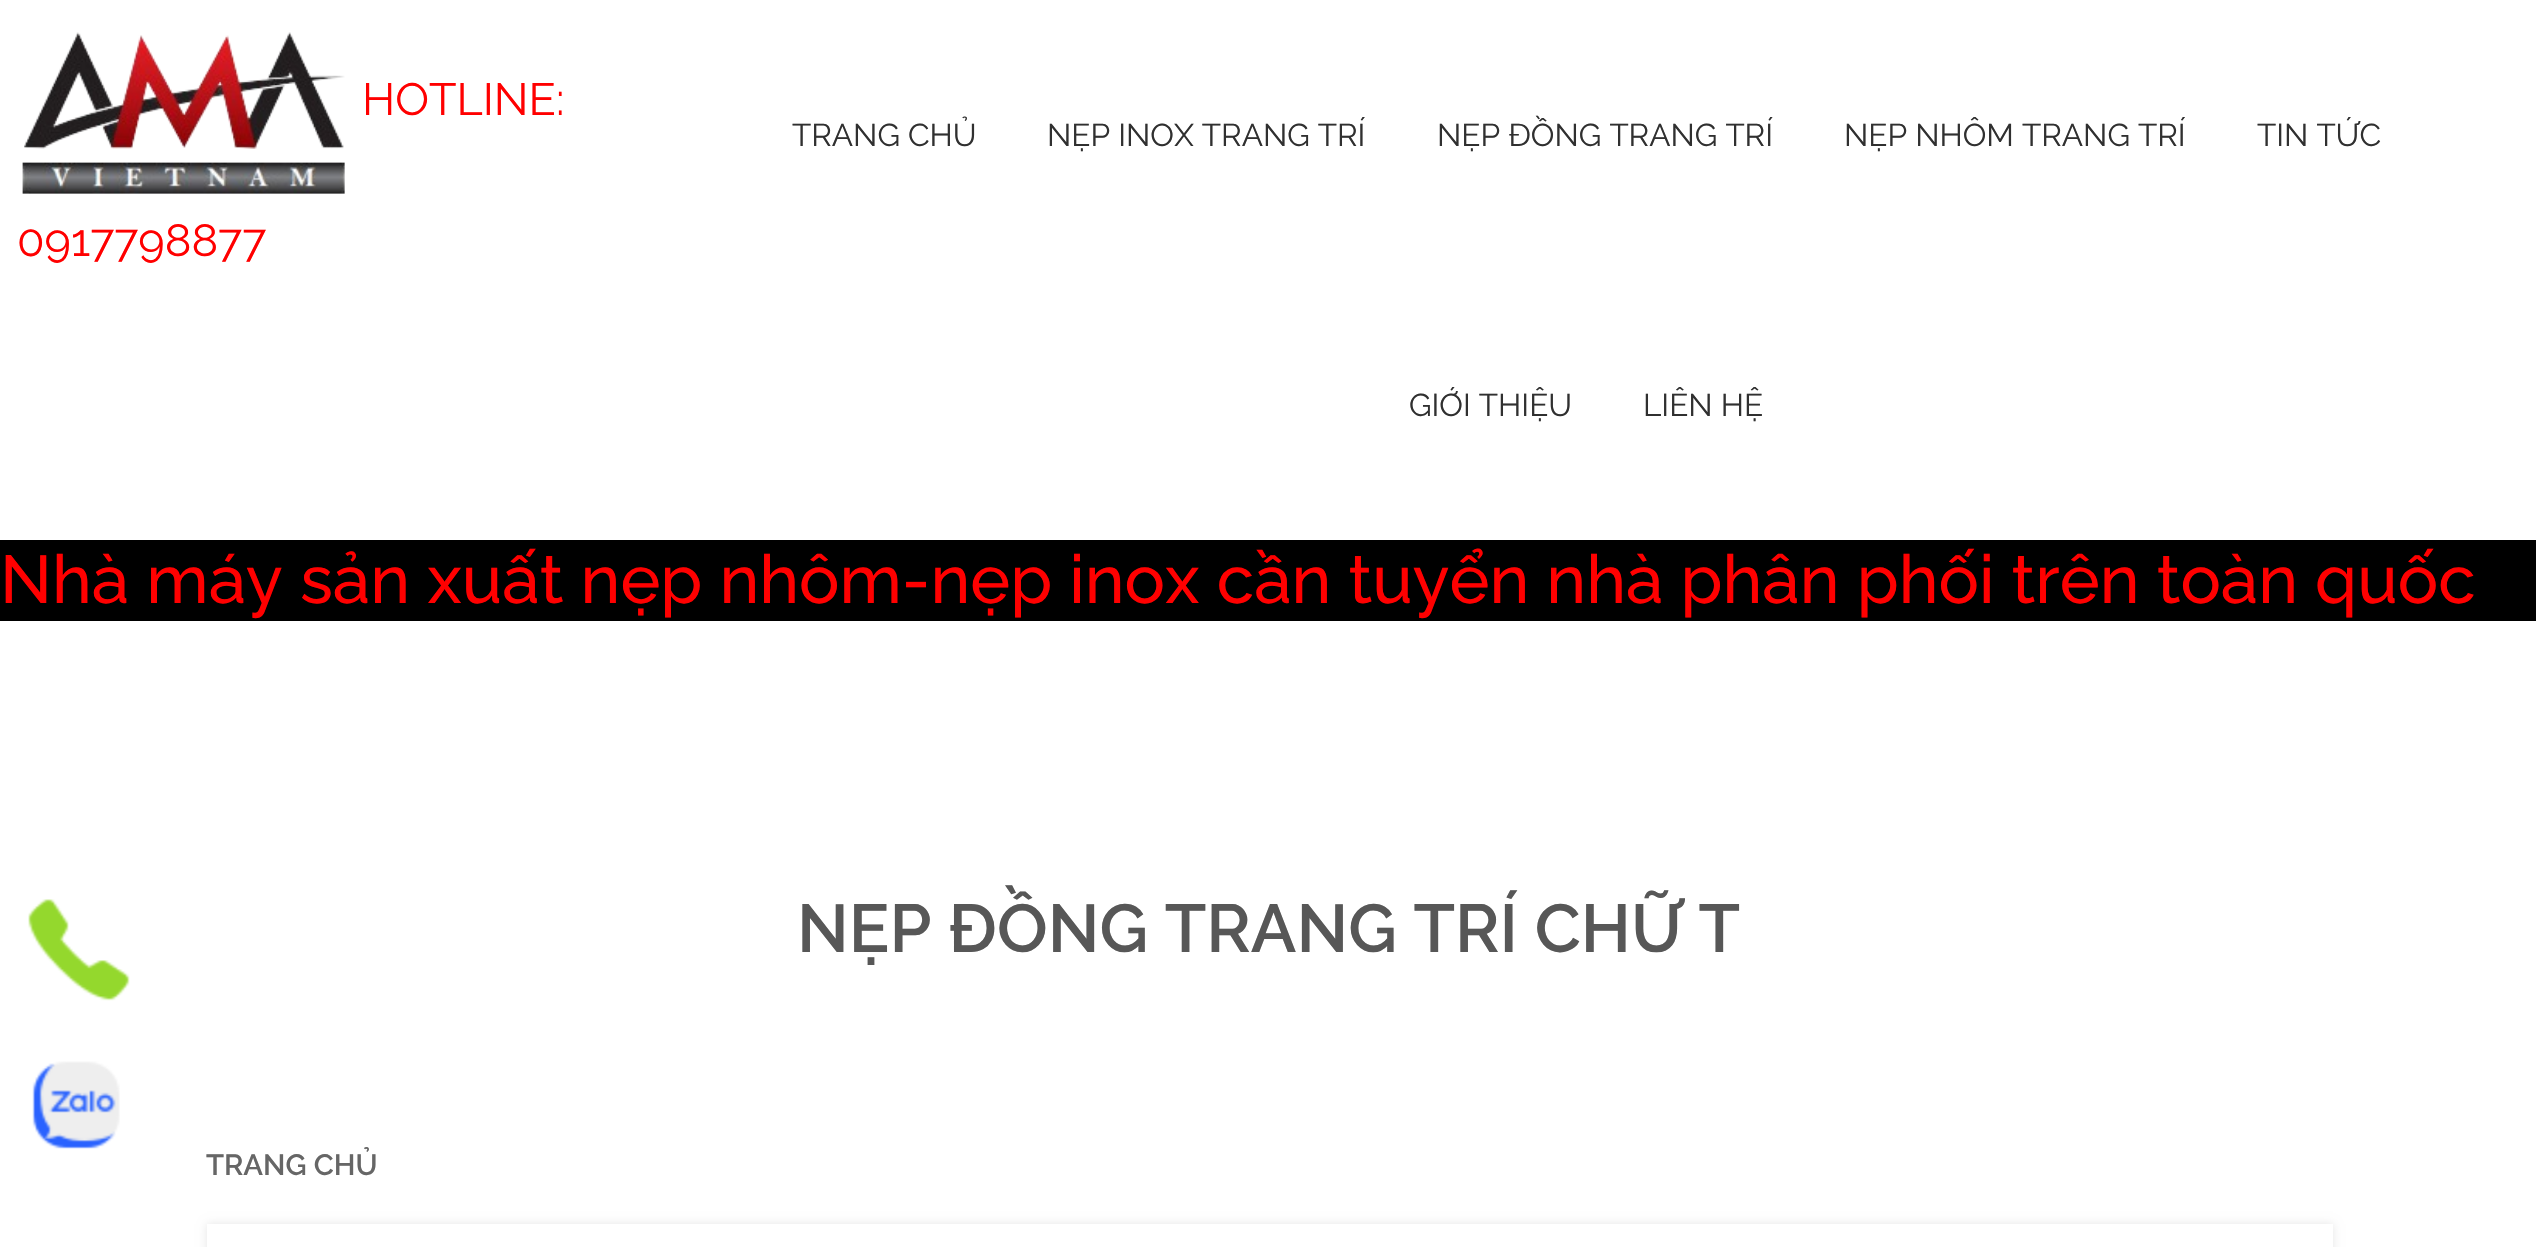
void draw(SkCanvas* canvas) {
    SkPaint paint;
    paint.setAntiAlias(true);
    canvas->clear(0xFFFFFFFF);
    canvas->drawImageRect(SkImages::DeferredFromEncodedData(SkData::MakeFromFileName("img1.png")), SkRect::MakeXYWH(22, 32, 323, 162), SkSamplingOptions());
    SkFont font1(fontMgr->matchFamilyStyle("Raleway", SkFontStyle::Normal()), 45);
    font1.setSubpixel(true);
    paint.setColor(0xFFFF0000);
    canvas->drawString("HOTLINE:", 362, 115, font1, paint);
    canvas->drawString("0917798877", 17, 256, font1, paint);
    SkFont font2(fontMgr->matchFamilyStyle("Raleway", SkFontStyle::Normal()), 31.5f);
    font2.setSubpixel(true);
    paint.setColor(0xFF303030);
    canvas->drawString("TRANG CHỦ", 792, 146, font2, paint);
    canvas->drawString("NẸP INOX TRANG TRÍ", 1047, 146, font2, paint);
    canvas->drawString("NẸP ĐỒNG TRANG TRÍ", 1437, 146, font2, paint);
    canvas->drawString("NẸP NHÔM TRANG TRÍ", 1844, 146, font2, paint);
    canvas->drawString("TIN TỨC", 2257, 146, font2, paint);
    canvas->drawString("GIỚI THIỆU", 1409, 416, font2, paint);
    canvas->drawString("LIÊN HỆ", 1643, 416, font2, paint);
    paint.setColor(0xFF000000);
    canvas->drawRect(SkRect::MakeXYWH(0, 540, 2536, 81), paint);
    SkFont font3(fontMgr->matchFamilyStyle("Raleway", SkFontStyle(500, SkFontStyle::kNormal_Width, SkFontStyle::kUpright_Slant)), 67.5f);
    font3.setSubpixel(true);
    paint.setColor(0xFFFF0000);
    canvas->drawString("Nhà máy sản xuất nẹp nhôm-nẹp inox cần tuyển nhà phân phối trên toàn quốc", 0, 603, font3, paint);
    canvas->drawImageRect(SkImages::DeferredFromEncodedData(SkData::MakeFromFileName("img2.png")), SkRect::MakeXYWH(28, 899, 102, 102), SkSamplingOptions());
    canvas->drawImageRect(SkImages::DeferredFromEncodedData(SkData::MakeFromFileName("img3.png")), SkRect::MakeXYWH(32, 1061, 88, 88), SkSamplingOptions());
    SkFont font4(fontMgr->matchFamilyStyle("Raleway", SkFontStyle(600, SkFontStyle::kNormal_Width, SkFontStyle::kUpright_Slant)), 67.5f);
    font4.setSubpixel(true);
    paint.setColor(0xFF575757);
    canvas->drawString("NẸP ĐỒNG TRANG TRÍ CHỮ T", 797, 952, font4, paint);
    SkFont font5(fontMgr->matchFamilyStyle("Raleway", SkFontStyle(600, SkFontStyle::kNormal_Width, SkFontStyle::kUpright_Slant)), 29.25f);
    font5.setSubpixel(true);
    paint.setColor(0xFF666666);
    canvas->drawString("TRANG CHỦ", 206, 1175, font5, paint);
    canvas->save();
    canvas->clipPath(SkPathBuilder(SkPathFillType::kEvenOdd).moveTo(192, 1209).lineTo(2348, 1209).lineTo(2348, 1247).lineTo(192, 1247).close().moveTo(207, 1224).lineTo(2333, 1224).lineTo(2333, 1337).lineTo(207, 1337).close().detach(), true);
    paint.setColor(0x1A000000);
    paint.setMaskFilter(SkMaskFilter::MakeBlur(kNormal_SkBlurStyle, 4.5f));
    canvas->drawRect(SkRect::MakeXYWH(207, 1224, 2126, 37), paint);
    paint.setMaskFilter(nullptr);
    canvas->restore();
}
